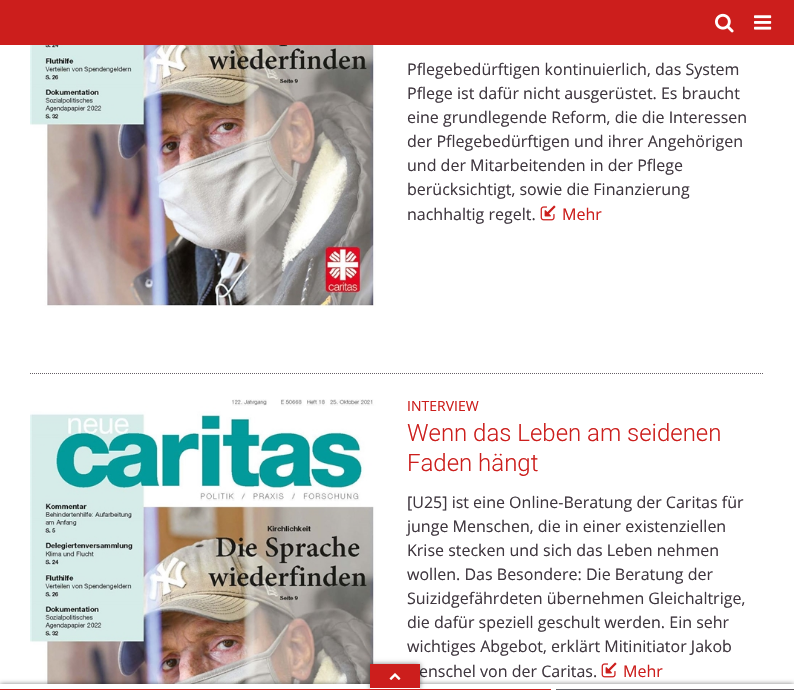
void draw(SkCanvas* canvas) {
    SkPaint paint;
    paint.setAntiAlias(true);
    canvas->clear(0xFFFFFFFF);
    paint.setColor(0xFFCC1E1C);
    canvas->drawRect(SkRect::MakeXYWH(0, 0, 794, 45), paint);
    canvas->drawImageRect(SkImages::DeferredFromEncodedData(SkData::MakeFromFileName("img1.png")), SkRect::MakeXYWH(715, 13, 19, 20), SkSamplingOptions());
    canvas->drawImageRect(SkImages::DeferredFromEncodedData(SkData::MakeFromFileName("img2.png")), SkRect::MakeXYWH(754, 15, 18, 15), SkSamplingOptions());
    paint.setStyle(SkPaint::kStroke_Style);
    paint.setStrokeWidth(1);
    paint.setColor(0xFF655F65);
    paint.setPathEffect(SkDashPathEffect::Make({{1, 1}}, 0));
    canvas->drawPath(SkPathBuilder().moveTo(30, 373.5f).lineTo(764, 373.5f).detach(), paint);
    paint.setPathEffect(nullptr);
    canvas->drawImageRect(SkImages::DeferredFromEncodedData(SkData::MakeFromFileName("img3.png")), SkRect::MakeXYWH(30, 45, 346, 263), SkSamplingOptions());
    SkFont font1(fontMgr->matchFamilyStyle("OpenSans", SkFontStyle::Normal()), 16);
    font1.setSubpixel(true);
    paint.setStyle(SkPaint::kFill_Style);
    paint.setColor(0xFF3F373F);
    canvas->drawString("Pflegebedürftigen kontinuierlich, das System", 407, 75, font1, paint);
    canvas->drawString("Pflege ist dafür nicht ausgerüstet. Es braucht", 407, 99, font1, paint);
    canvas->drawString("eine grundlegende Reform, die die Interessen", 407, 123, font1, paint);
    canvas->drawString("der Pflegebedürftigen und ihrer Angehörigen", 407, 147, font1, paint);
    canvas->drawString("und der Mitarbeitenden in der Pflege", 407, 171, font1, paint);
    canvas->drawString("berücksichtigt, sowie die Finanzierung", 407, 195, font1, paint);
    canvas->drawString("nachhaltig regelt.", 407, 220, font1, paint);
    canvas->drawImageRect(SkImages::DeferredFromEncodedData(SkData::MakeFromFileName("img4.png")), SkRect::MakeXYWH(540, 205, 16, 16), SkSamplingOptions());
    paint.setColor(0xFFCC1E1C);
    canvas->drawString("Mehr", 562, 220, font1, paint);
    canvas->drawImageRect(SkImages::DeferredFromEncodedData(SkData::MakeFromFileName("img5.png")), SkRect::MakeXYWH(30, 399, 346, 285), SkSamplingOptions());
    SkFont font2(fontMgr->matchFamilyStyle("OpenSans", SkFontStyle::Normal()), 14);
    font2.setSubpixel(true);
    canvas->drawString("INTERVIEW", 407, 411, font2, paint);
    SkFont font3(fontMgr->matchFamilyStyle("Roboto", SkFontStyle(300, SkFontStyle::kNormal_Width, SkFontStyle::kUpright_Slant)), 24);
    font3.setSubpixel(true);
    canvas->drawString("Wenn das Leben am seidenen", 407, 441, font3, paint);
    canvas->drawString("Faden hängt", 407, 471, font3, paint);
    paint.setColor(0xFF3F373F);
    canvas->drawString("[U25] ist eine Online-Beratung der Caritas für", 407, 508, font1, paint);
    canvas->drawString("junge Menschen, die in einer existenziellen", 407, 532, font1, paint);
    canvas->drawString("Krise stecken und sich das Leben nehmen", 407, 556, font1, paint);
    canvas->drawString("wollen. Das Besondere: Die Beratung der", 407, 580, font1, paint);
    canvas->drawString("Suizidgefährdeten übernehmen Gleichaltrige,", 407, 604, font1, paint);
    canvas->drawString("die dafür speziell geschult werden. Ein sehr", 407, 628, font1, paint);
    canvas->drawString("wichtiges Abgebot, erklärt Mitinitiator Jakob", 407, 652, font1, paint);
    canvas->drawString("enschel von der Caritas.", 419, 677, font1, paint);
    canvas->drawImageRect(SkImages::DeferredFromEncodedData(SkData::MakeFromFileName("img4.png")), SkRect::MakeXYWH(601, 662, 16, 16), SkSamplingOptions());
    paint.setColor(0xFFCC1E1C);
    canvas->drawString("Mehr", 623, 677, font1, paint);
    paint.setColor(0x80000000);
    paint.setMaskFilter(SkMaskFilter::MakeBlur(kNormal_SkBlurStyle, 2.5f));
    canvas->drawRect(SkRect::MakeXYWH(0, 684, 794, 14), paint);
    paint.setMaskFilter(nullptr);
    paint.setColor(0xFFFFFFFF);
    canvas->drawRect(SkRect::MakeXYWH(0, 684, 794, 5), paint);
    paint.setColor(0x80000000);
    paint.setMaskFilter(SkMaskFilter::MakeBlur(kNormal_SkBlurStyle, 2.5f));
    canvas->drawRect(SkRect::MakeXYWH(370, 664, 50, 24), paint);
    paint.setMaskFilter(nullptr);
    paint.setColor(0xFFCC1E1C);
    canvas->drawRect(SkRect::MakeXYWH(370, 664, 50, 24), paint);
    canvas->drawImageRect(SkImages::DeferredFromEncodedData(SkData::MakeFromFileName("img6.png")), SkRect::MakeXYWH(389, 673, 12, 7), SkSamplingOptions());
    paint.setColor(0xFFFFFFFF);
    canvas->drawRect(SkRect::MakeXYWH(370, 688, 50, 1), paint);
    paint.setColor(0xFFCC1E1C);
    canvas->drawRect(SkRect::MakeXYWH(0, 689, 556, 1), paint);
    paint.setColor(0xFFFFFFFF);
    canvas->drawRect(SkRect::MakeXYWH(551, 689, 5, 1), paint);
    paint.setColor(0xFF655F65);
    canvas->drawRect(SkRect::MakeXYWH(556, 689, 238, 1), paint);
}
